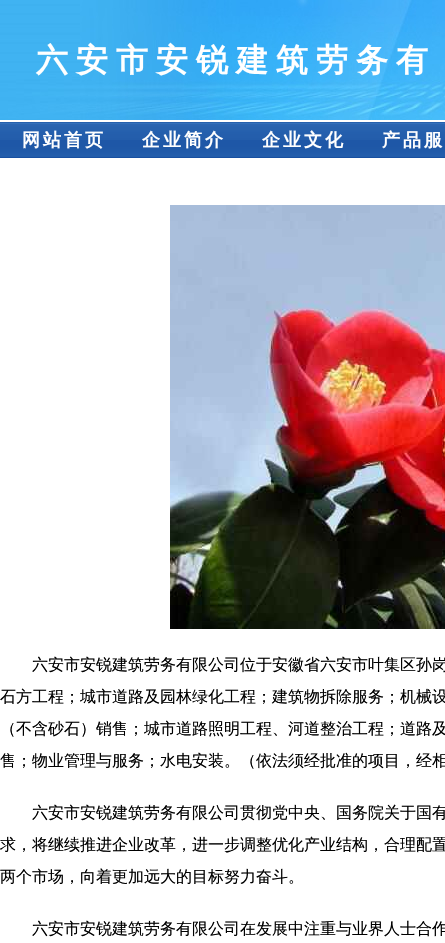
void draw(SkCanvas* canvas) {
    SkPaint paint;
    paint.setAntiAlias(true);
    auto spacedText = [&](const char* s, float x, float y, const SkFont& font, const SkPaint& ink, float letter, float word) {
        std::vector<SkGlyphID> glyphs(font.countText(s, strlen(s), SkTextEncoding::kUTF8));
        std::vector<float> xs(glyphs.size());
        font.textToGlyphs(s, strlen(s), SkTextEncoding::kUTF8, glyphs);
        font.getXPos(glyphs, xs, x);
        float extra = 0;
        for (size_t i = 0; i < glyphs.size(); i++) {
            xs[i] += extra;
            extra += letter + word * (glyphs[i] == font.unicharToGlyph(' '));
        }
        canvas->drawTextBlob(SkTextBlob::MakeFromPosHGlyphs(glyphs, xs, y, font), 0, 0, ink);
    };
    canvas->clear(0xFFFFFFFF);
    canvas->drawImageRect(SkImages::DeferredFromEncodedData(SkData::MakeFromFileName("img1.png")), SkRect::MakeXYWH(0, 0, 445, 120), SkSamplingOptions());
    SkFont font1(fontMgr->matchFamilyStyle("WenQuanYi Zen Hei", SkFontStyle::Bold()), 32);
    font1.setSubpixel(true);
    paint.setColor(0xFFFFFFFF);
    spacedText("六安市安锐建筑劳务有", 36, 71, font1, paint, 8, 0);
    canvas->drawImageRect(SkImages::DeferredFromEncodedData(SkData::MakeFromFileName("img2.png")), SkRect::MakeXYWH(0, 122, 445, 36), SkSamplingOptions());
    SkFont font2(fontMgr->matchFamilyStyle("WenQuanYi Zen Hei", SkFontStyle::Bold()), 18);
    font2.setSubpixel(true);
    spacedText("网站首页", 22, 146, font2, paint, 3, 0);
    spacedText("企业简介", 142, 146, font2, paint, 3, 0);
    spacedText("企业文化", 262, 146, font2, paint, 3, 0);
    spacedText("产品服", 382, 146, font2, paint, 3, 0);
    canvas->drawImageRect(SkImages::DeferredFromEncodedData(SkData::MakeFromFileName("img3.png")), SkRect::MakeXYWH(170, 205, 275, 424), SkSamplingOptions());
    SkFont font3(fontMgr->matchFamilyStyle("WenQuanYi Zen Hei", SkFontStyle(500, SkFontStyle::kNormal_Width, SkFontStyle::kUpright_Slant)), 16);
    font3.setSubpixel(true);
    paint.setColor(0xFF000000);
    canvas->drawString("六安市安锐建筑劳务有限公司位于安徽省六安市叶集区孙岗", 32, 670, font3, paint);
    canvas->drawString("石方工程；城市道路及园林绿化工程；建筑物拆除服务；机械设", 0, 702, font3, paint);
    canvas->drawString("（不含砂石）销售；城市道路照明工程、河道整治工程；道路及", 0, 734, font3, paint);
    canvas->drawString("售；物业管理与服务；水电安装。（依法须经批准的项目，经相", 0, 766, font3, paint);
    canvas->drawString("六安市安锐建筑劳务有限公司贯彻党中央、国务院关于国有", 32, 818, font3, paint);
    canvas->drawString("求，将继续推进企业改革，进一步调整优化产业结构，合理配置", 0, 850, font3, paint);
    canvas->drawString("两个市场，向着更加远大的目标努力奋斗。", 0, 882, font3, paint);
    spacedText("六安市安锐建筑劳务有限公司在发展中注重与业界人士合作", 32, 934, font3, paint, 0, -1);
}
